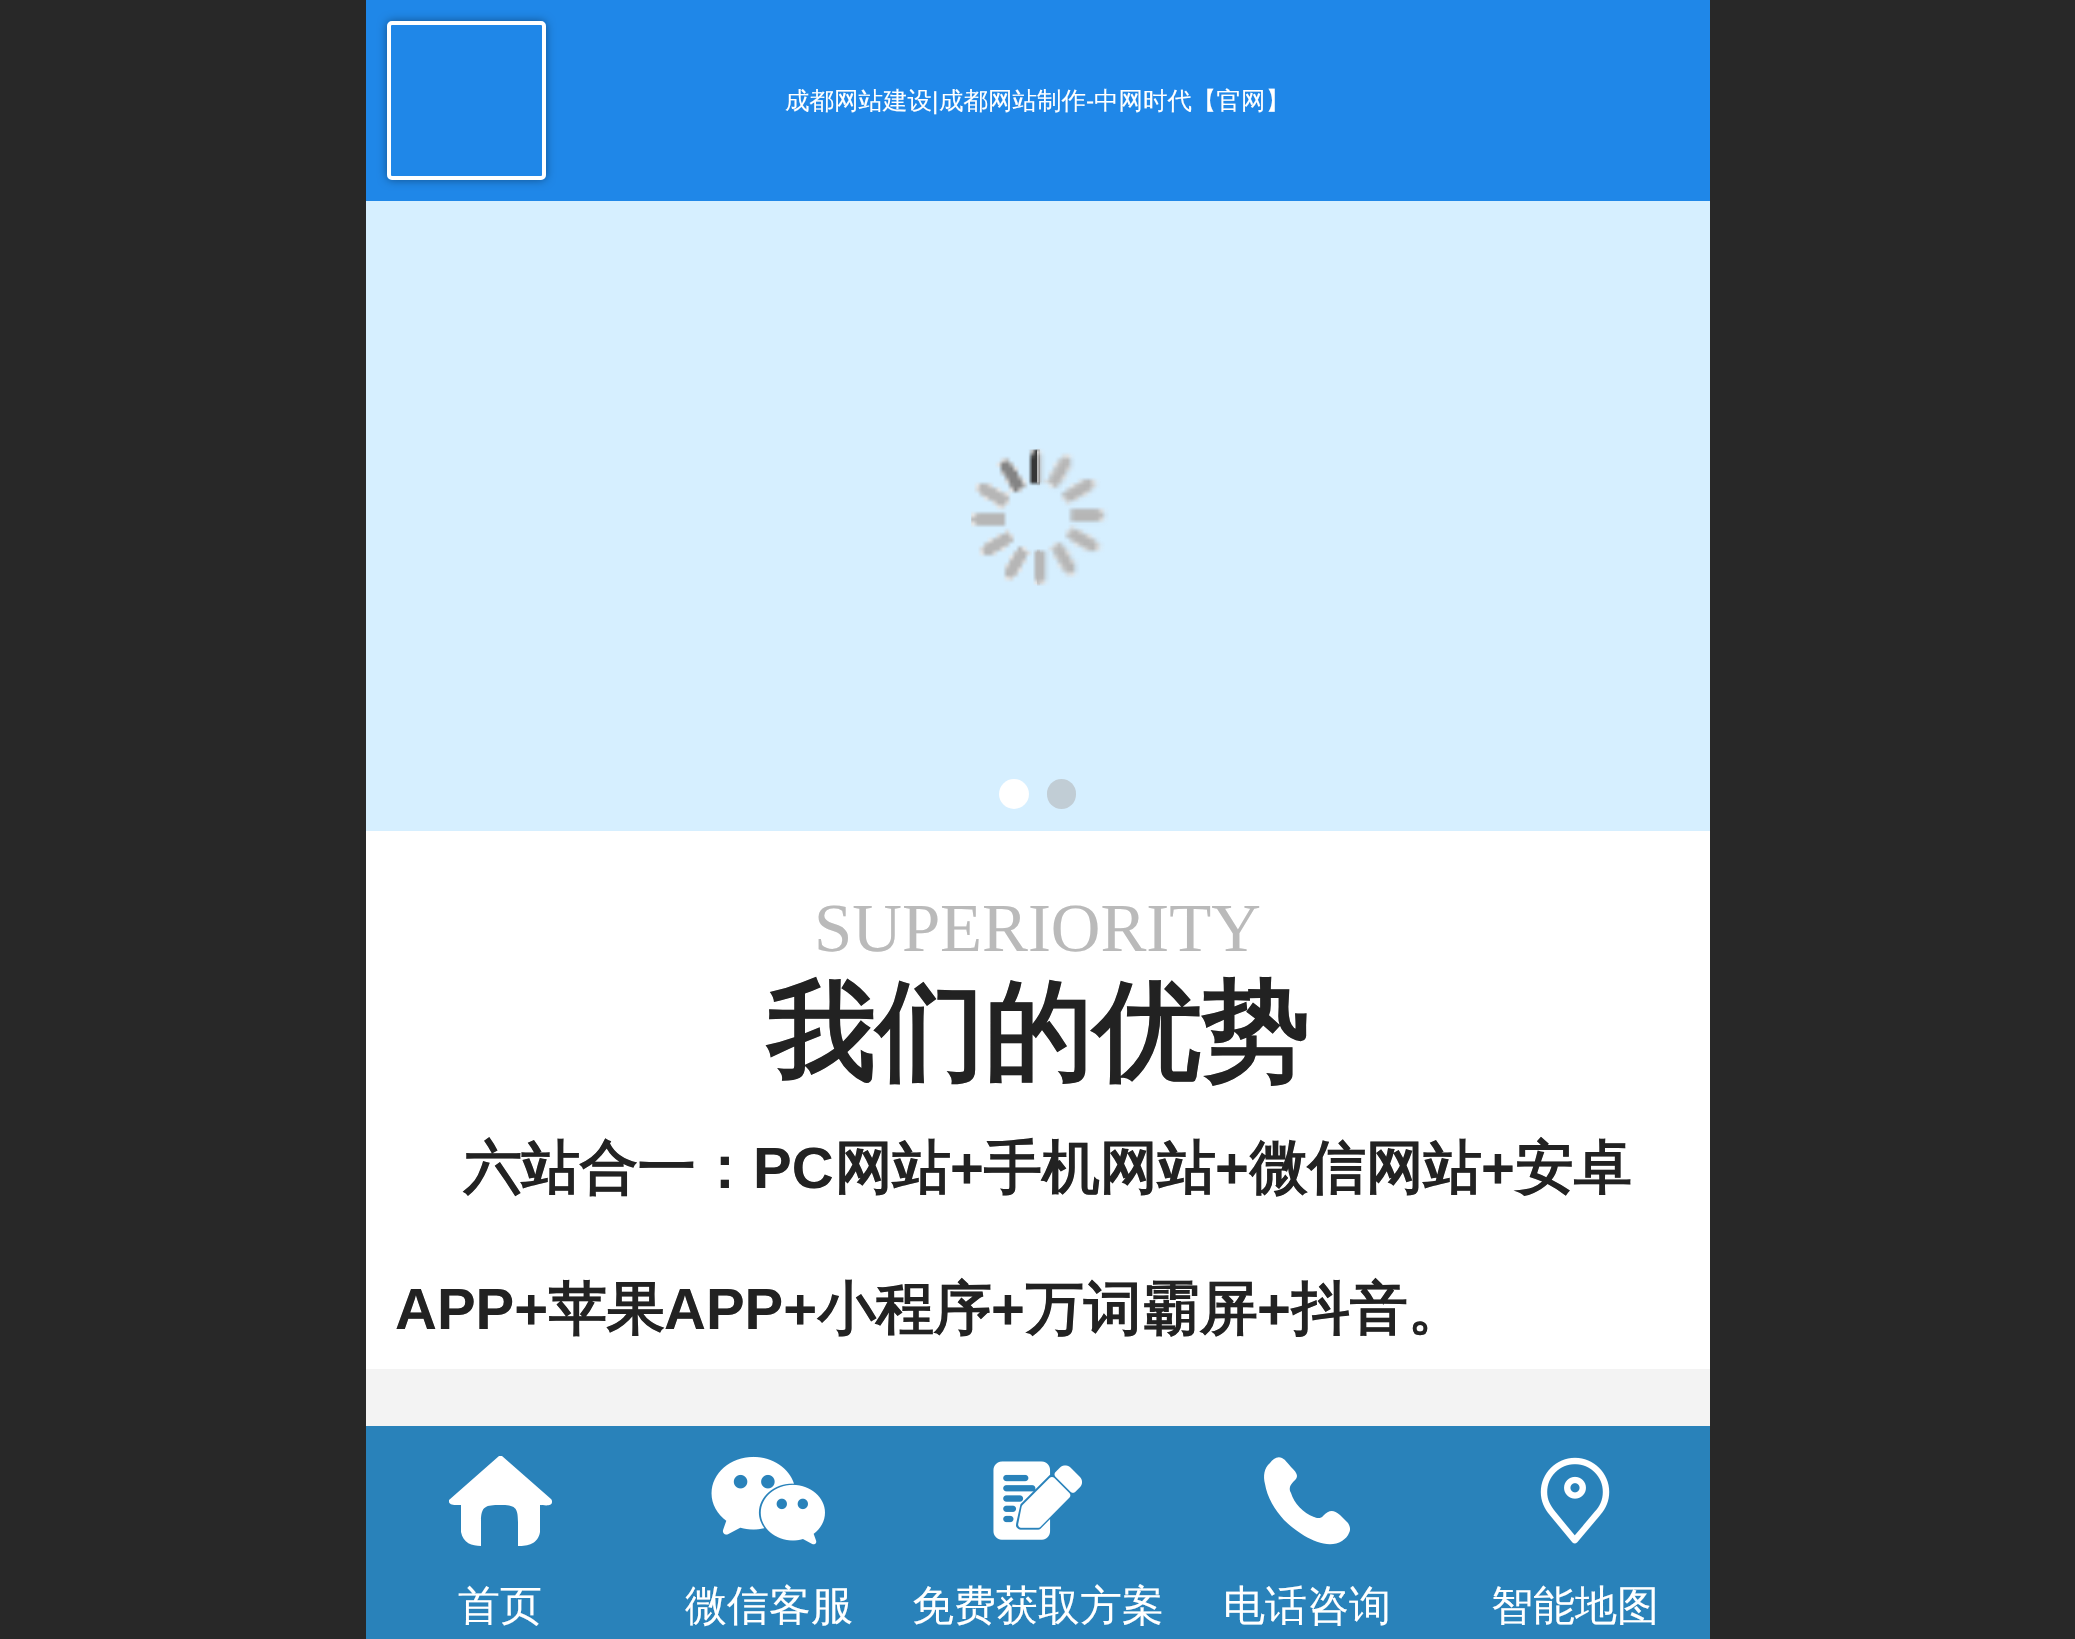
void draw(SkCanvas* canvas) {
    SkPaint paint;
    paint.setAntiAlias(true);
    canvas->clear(0xFFD6EFFF);
    paint.setColor(0xFF282828);
    canvas->drawRect(SkRect::MakeXYWH(0, 0, 366, 1639), paint);
    paint.setColor(0xFF1F87E8);
    canvas->drawRect(SkRect::MakeXYWH(366, 0, 1344, 201), paint);
    canvas->save();
    canvas->clipPath(SkPathBuilder(SkPathFillType::kEvenOdd).moveTo(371, 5).lineTo(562, 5).lineTo(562, 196).lineTo(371, 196).close().moveTo(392, 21).lineTo(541, 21).cubicTo(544, 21, 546, 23, 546, 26).lineTo(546, 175).cubicTo(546, 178, 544, 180, 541, 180).lineTo(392, 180).cubicTo(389, 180, 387, 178, 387, 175).lineTo(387, 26).cubicTo(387, 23, 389, 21, 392, 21).close().detach(), true);
    paint.setColor(0x66000000);
    paint.setMaskFilter(SkMaskFilter::MakeBlur(kNormal_SkBlurStyle, 5));
    canvas->drawRoundRect(SkRect::MakeXYWH(387, 21, 159, 159), 5, 5, paint);
    paint.setMaskFilter(nullptr);
    canvas->restore();
    paint.setStyle(SkPaint::kStroke_Style);
    paint.setStrokeWidth(4);
    paint.setColor(0xFFFFFFFF);
    canvas->drawRoundRect(SkRect::MakeXYWH(389, 23, 155, 155), 3, 3, paint);
    SkFont font1(fontMgr->matchFamilyStyle("WenQuanYi Zen Hei", SkFontStyle(500, SkFontStyle::kNormal_Width, SkFontStyle::kUpright_Slant)), 24.5f);
    font1.setSubpixel(true);
    paint.setStyle(SkPaint::kFill_Style);
    canvas->drawString("成都网站建设", 785, 109, font1, paint);
    SkFont font2(fontMgr->matchFamilyStyle("Liberation Sans", SkFontStyle::Normal()), 24.5f);
    font2.setSubpixel(true);
    canvas->drawString("|", 932, 109, font2, paint);
    canvas->drawString("成都网站制作", 939, 109, font1, paint);
    canvas->drawString("-", 1086, 109, font2, paint);
    canvas->drawString("中网时代【官网】", 1094, 109, font1, paint);
    canvas->drawImageRect(SkImages::DeferredFromEncodedData(SkData::MakeFromFileName("img1.png")), SkRect::MakeXYWH(971, 449, 69, 137), SkSamplingOptions());
    canvas->drawImageRect(SkImages::DeferredFromEncodedData(SkData::MakeFromFileName("img2.png")), SkRect::MakeXYWH(1037, 448, 72, 138), SkSamplingOptions());
    canvas->drawCircle(1014, 794, 15, paint);
    paint.setColor(0xFFC1CDD5);
    canvas->drawRoundRect(SkRect::MakeXYWH(1047, 779, 29, 30), 14.5f, 14.5f, paint);
    paint.setColor(0xFFFFFFFF);
    canvas->drawRect(SkRect::MakeXYWH(366, 831, 1344, 538), paint);
    SkFont font3(fontMgr->matchFamilyStyle("Liberation Serif", SkFontStyle::Normal()), 68.75f);
    font3.setSubpixel(true);
    paint.setColor(0xFFBABABA);
    canvas->drawString("SUPERIORITY", 814, 951, font3, paint);
    SkFont font4(fontMgr->matchFamilyStyle("WenQuanYi Zen Hei", SkFontStyle::Bold()), 108.5f);
    font4.setSubpixel(true);
    paint.setColor(0xFF222222);
    canvas->drawString("我们的优势", 766, 1070, font4, paint);
    SkFont font5(fontMgr->matchFamilyStyle("WenQuanYi Zen Hei", SkFontStyle::Bold()), 58);
    font5.setSubpixel(true);
    canvas->drawString("六站合一：", 463, 1188, font5, paint);
    SkFont font6(fontMgr->matchFamilyStyle("Liberation Sans", SkFontStyle::Bold()), 58);
    font6.setSubpixel(true);
    canvas->drawString("PC", 753, 1188, font6, paint);
    canvas->drawString("网站", 834, 1188, font5, paint);
    canvas->drawString("+", 950, 1188, font6, paint);
    canvas->drawString("手机网站", 983, 1188, font5, paint);
    canvas->drawString("+", 1215, 1188, font6, paint);
    canvas->drawString("微信", 1249, 1188, font5, paint);
    canvas->drawString("网站", 1365, 1188, font5, paint);
    canvas->drawString("+", 1481, 1188, font6, paint);
    canvas->drawString("安卓", 1515, 1188, font5, paint);
    canvas->drawString("APP+", 395, 1329, font6, paint);
    canvas->drawString("苹果", 548, 1329, font5, paint);
    canvas->drawString("APP+", 664, 1329, font6, paint);
    canvas->drawString("小程序", 817, 1329, font5, paint);
    canvas->drawString("+", 991, 1329, font6, paint);
    canvas->drawString("万词霸屏", 1025, 1329, font5, paint);
    canvas->drawString("+", 1257, 1329, font6, paint);
    canvas->drawString("抖音。", 1291, 1329, font5, paint);
    paint.setColor(0xFFF3F3F3);
    canvas->drawRect(SkRect::MakeXYWH(366, 1369, 1344, 57), paint);
    paint.setColor(0xFF2982BA);
    canvas->drawRect(SkRect::MakeXYWH(366, 1426, 1344, 213), paint);
    paint.setColor(0xFFFFFFFF);
    canvas->drawPath(SkPathBuilder().moveTo(551, 1499).lineTo(502, 1456).lineTo(499, 1456).lineTo(449, 1500).lineTo(449, 1502).cubicTo(450, 1506, 458, 1505, 461, 1505).lineTo(461, 1532).cubicTo(463, 1543, 472, 1546, 481, 1546).lineTo(481, 1521).cubicTo(481, 1506, 486, 1505, 500, 1505).cubicTo(515, 1505, 518, 1507, 518, 1522).lineTo(518, 1546).cubicTo(528, 1546, 538, 1544, 540, 1532).lineTo(540, 1505).cubicTo(543, 1505, 552, 1507, 552, 1502).cubicTo(552, 1501, 552, 1500, 551, 1499).close().detach(), paint);
    SkFont font7(fontMgr->matchFamilyStyle("WenQuanYi Zen Hei", SkFontStyle(500, SkFontStyle::kNormal_Width, SkFontStyle::kUpright_Slant)), 42);
    font7.setSubpixel(true);
    canvas->drawString("首页", 458, 1620, font7, paint);
    canvas->drawImageRect(SkImages::DeferredFromEncodedData(SkData::MakeFromFileName("img3.png")), SkRect::MakeXYWH(711, 1456, 114, 89), SkSamplingOptions());
    canvas->drawString("微信客服", 685, 1620, font7, paint);
    canvas->drawImageRect(SkImages::DeferredFromEncodedData(SkData::MakeFromFileName("img4.png")), SkRect::MakeXYWH(993, 1461, 89, 79), SkSamplingOptions());
    canvas->drawString("免费获取方案", 912, 1620, font7, paint);
    canvas->drawPath(SkPathBuilder().moveTo(1348, 1523).lineTo(1340, 1515).cubicTo(1333, 1509, 1329, 1510, 1323, 1516).cubicTo(1321, 1519, 1316, 1518, 1314, 1517).cubicTo(1303, 1513, 1294, 1503, 1291, 1493).lineTo(1290, 1491).cubicTo(1288, 1479, 1306, 1481, 1291, 1467).cubicTo(1288, 1464, 1286, 1460, 1282, 1458).cubicTo(1277, 1456, 1273, 1459, 1270, 1463).cubicTo(1264, 1468, 1263, 1476, 1265, 1484).cubicTo(1267, 1497, 1275, 1510, 1284, 1520).cubicTo(1296, 1532, 1324, 1552, 1342, 1541).cubicTo(1345, 1539, 1348, 1536, 1349, 1533).cubicTo(1351, 1530, 1350, 1526, 1348, 1523).close().detach(), paint);
    canvas->drawString("电话咨询", 1223, 1620, font7, paint);
    canvas->drawImageRect(SkImages::DeferredFromEncodedData(SkData::MakeFromFileName("img5.png")), SkRect::MakeXYWH(1540, 1457, 70, 87), SkSamplingOptions());
    canvas->drawString("智能地图", 1491, 1620, font7, paint);
    paint.setColor(0xFF282828);
    canvas->drawRect(SkRect::MakeXYWH(1710, 0, 365, 1639), paint);
}
